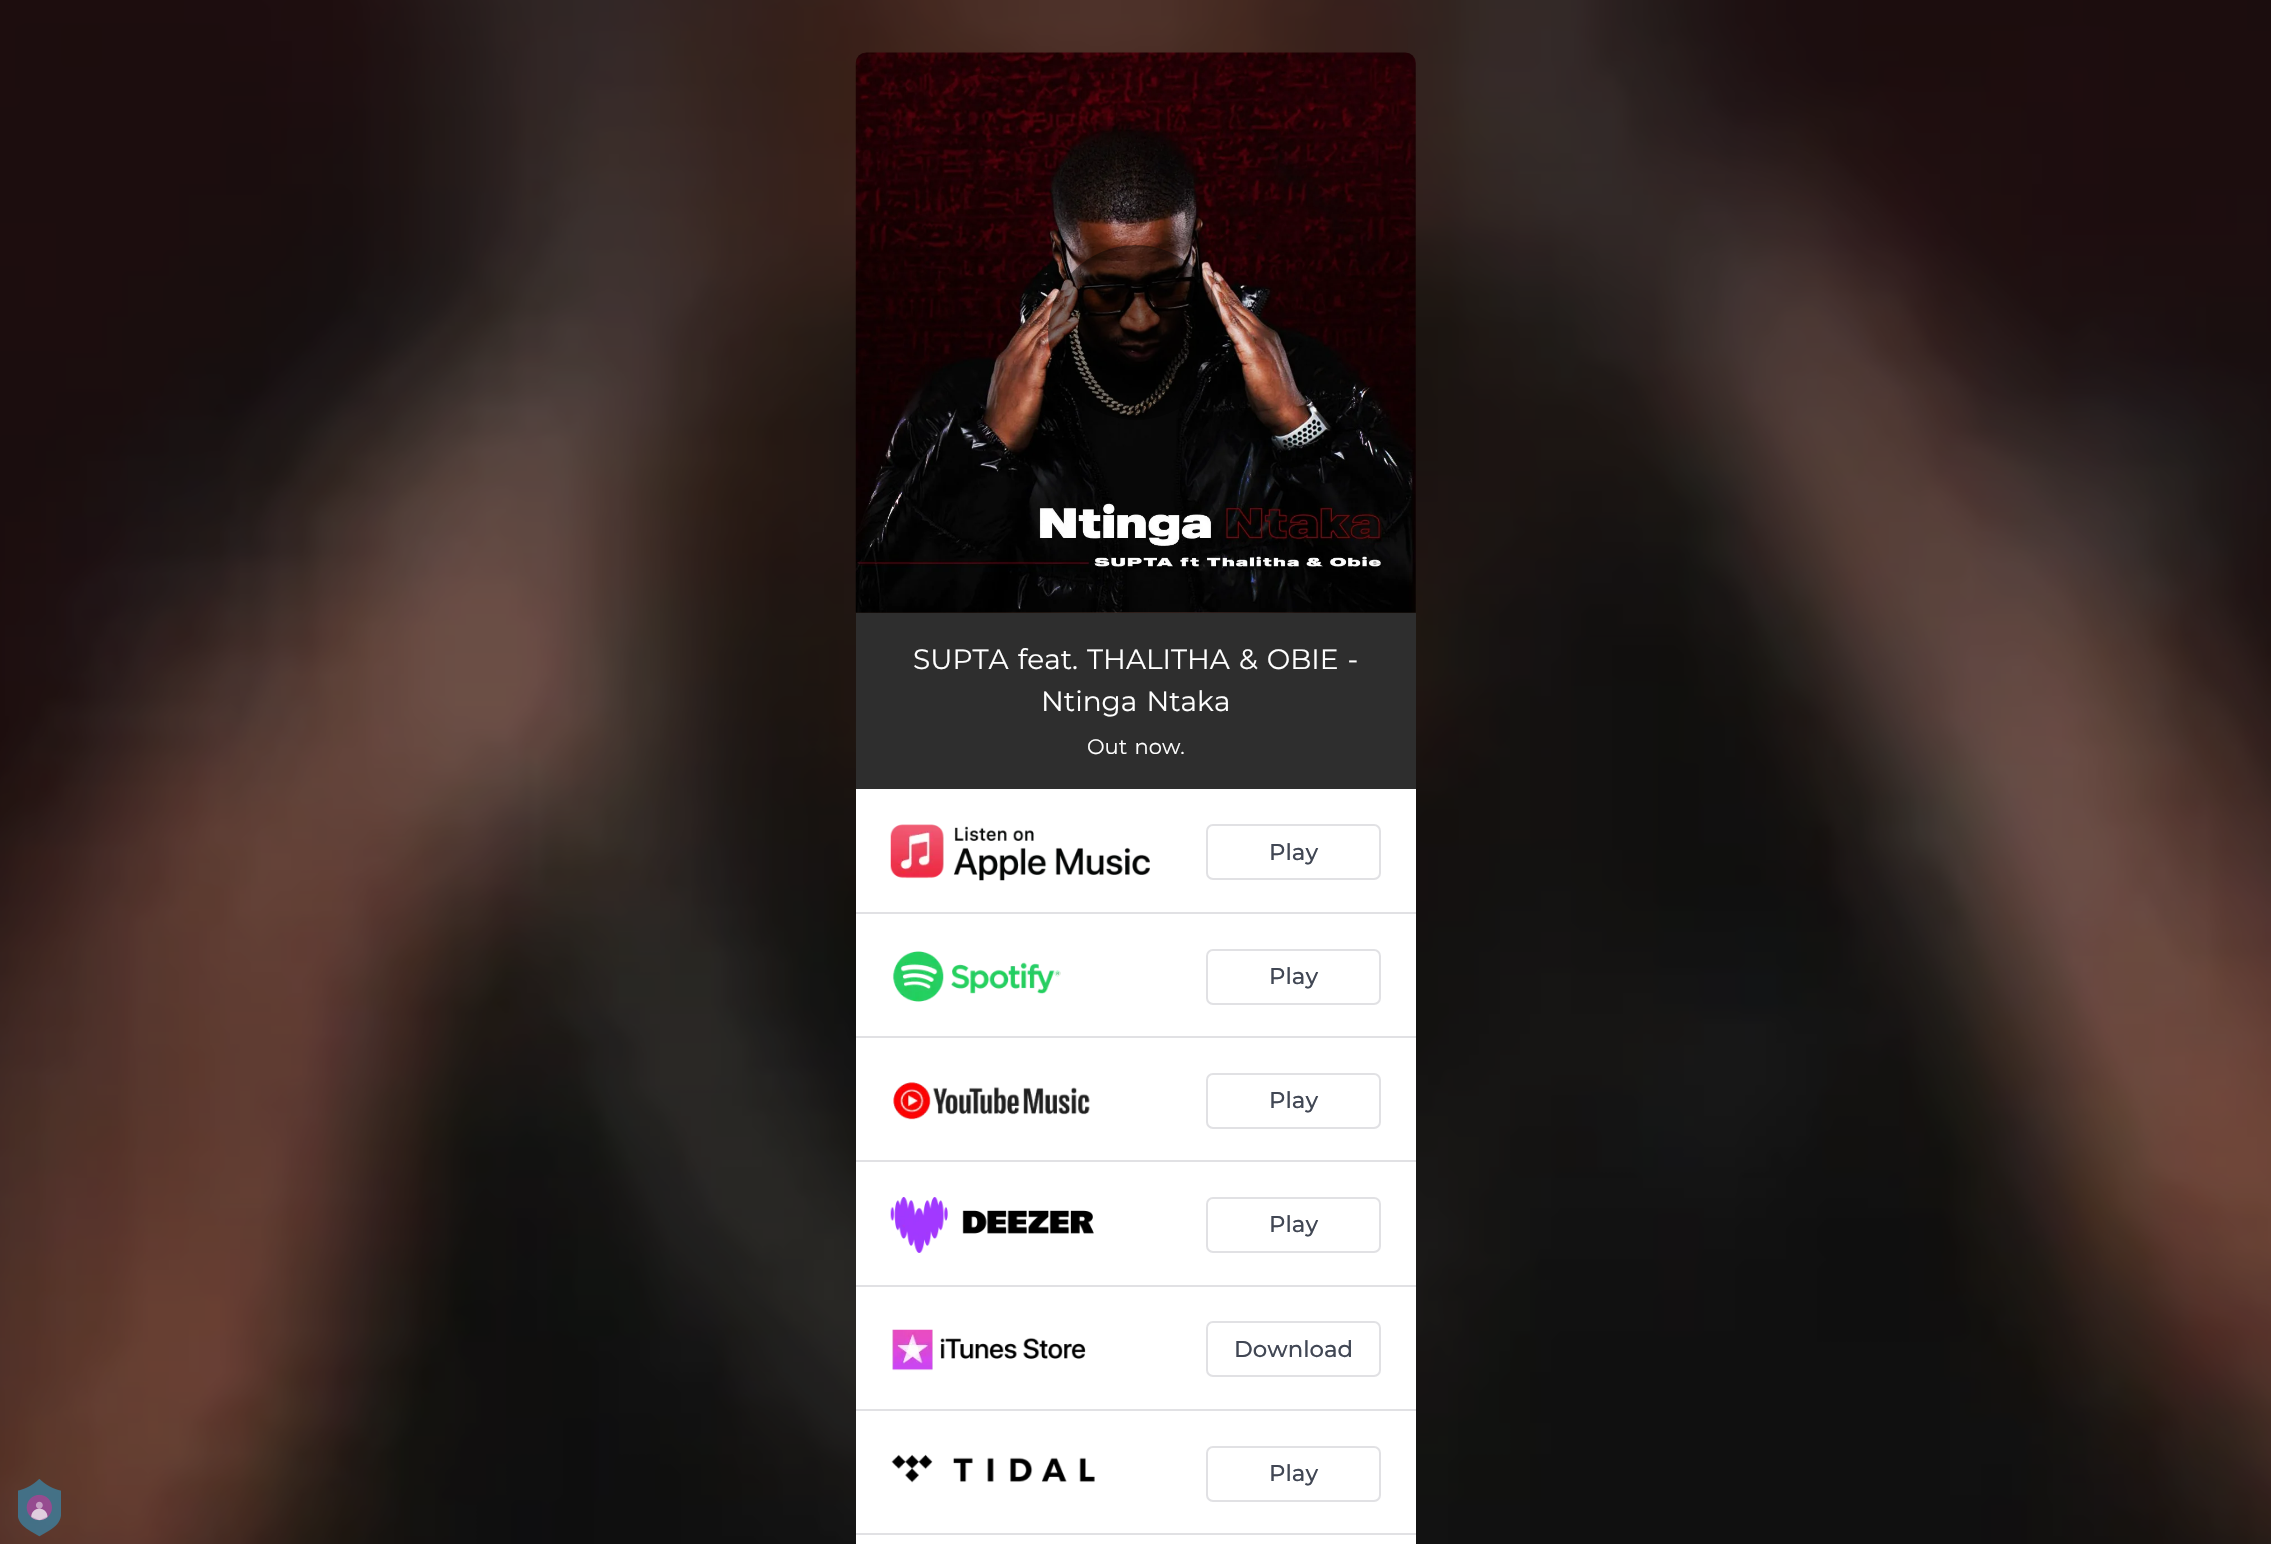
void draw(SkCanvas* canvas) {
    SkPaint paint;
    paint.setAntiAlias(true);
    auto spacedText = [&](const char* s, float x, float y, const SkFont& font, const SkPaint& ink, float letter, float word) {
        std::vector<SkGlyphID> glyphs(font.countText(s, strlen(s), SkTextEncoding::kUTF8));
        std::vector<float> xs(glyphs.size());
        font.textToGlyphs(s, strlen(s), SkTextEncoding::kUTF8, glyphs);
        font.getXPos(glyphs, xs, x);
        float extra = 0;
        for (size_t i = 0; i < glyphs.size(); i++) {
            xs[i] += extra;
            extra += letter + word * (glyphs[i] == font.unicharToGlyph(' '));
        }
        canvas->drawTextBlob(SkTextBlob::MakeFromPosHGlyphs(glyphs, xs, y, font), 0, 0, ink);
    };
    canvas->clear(0xFFFFFFFF);
    canvas->drawImageRect(SkImages::DeferredFromEncodedData(SkData::MakeFromFileName("img1.png")), SkRect::MakeXYWH(0, 0, 2271, 1544), SkSamplingOptions());
    canvas->drawImageRect(SkImages::DeferredFromEncodedData(SkData::MakeFromFileName("img2.png")), SkRect::MakeXYWH(855, 52, 561, 561), SkSamplingOptions());
    paint.setColor(0x73000000);
    canvas->drawCircle(1135.5f, 332.5f, 87.5f, paint);
    paint.setColor(0xFF2E2E2E);
    canvas->drawRect(SkRect::MakeXYWH(856, 613, 560, 176), paint);
    SkFont font1(fontMgr->matchFamilyStyle("Montserrat", SkFontStyle::Normal()), 28);
    font1.setSubpixel(true);
    paint.setColor(0xFFFFFFFF);
    spacedText("SUPTA feat. THALITHA & OBIE -", 913, 669, font1, paint, 0, 1.75f);
    spacedText("Ntinga Ntaka", 1041, 711, font1, paint, 0, 1.75f);
    SkFont font2(fontMgr->matchFamilyStyle("Montserrat", SkFontStyle::Normal()), 21);
    font2.setSubpixel(true);
    spacedText("Out now.", 1087, 754, font2, paint, 0, 1.75f);
    canvas->drawRect(SkRect::MakeXYWH(856, 789, 560, 755), paint);
    paint.setColor(0xFFE1E1E4);
    canvas->drawRect(SkRect::MakeXYWH(856, 912, 560, 2), paint);
    canvas->drawImageRect(SkImages::DeferredFromEncodedData(SkData::MakeFromFileName("img3.png")), SkRect::MakeXYWH(890, 824, 260, 57), SkSamplingOptions());
    paint.setStyle(SkPaint::kStroke_Style);
    paint.setStrokeWidth(2);
    canvas->drawRoundRect(SkRect::MakeXYWH(1207, 825, 173, 54), 6, 6, paint);
    SkFont font3(fontMgr->matchFamilyStyle("Montserrat", SkFontStyle(500, SkFontStyle::kNormal_Width, SkFontStyle::kUpright_Slant)), 22.75f);
    font3.setSubpixel(true);
    paint.setStyle(SkPaint::kFill_Style);
    paint.setColor(0xFF414754);
    canvas->drawString("Play", 1269, 860, font3, paint);
    paint.setColor(0xFFE1E1E4);
    canvas->drawRect(SkRect::MakeXYWH(856, 1036, 560, 2), paint);
    canvas->drawImageRect(SkImages::DeferredFromEncodedData(SkData::MakeFromFileName("img4.png")), SkRect::MakeXYWH(892, 951, 169, 51), SkSamplingOptions());
    paint.setStyle(SkPaint::kStroke_Style);
    canvas->drawRoundRect(SkRect::MakeXYWH(1207, 950, 173, 54), 6, 6, paint);
    paint.setStyle(SkPaint::kFill_Style);
    paint.setColor(0xFF414754);
    canvas->drawString("Play", 1269, 984, font3, paint);
    paint.setColor(0xFFE1E1E4);
    canvas->drawRect(SkRect::MakeXYWH(856, 1160, 560, 2), paint);
    canvas->drawImageRect(SkImages::DeferredFromEncodedData(SkData::MakeFromFileName("img5.png")), SkRect::MakeXYWH(893, 1082, 197, 38), SkSamplingOptions());
    paint.setStyle(SkPaint::kStroke_Style);
    canvas->drawRoundRect(SkRect::MakeXYWH(1207, 1074, 173, 54), 6, 6, paint);
    paint.setStyle(SkPaint::kFill_Style);
    paint.setColor(0xFF414754);
    canvas->drawString("Play", 1269, 1108, font3, paint);
    paint.setColor(0xFFE1E1E4);
    canvas->drawRect(SkRect::MakeXYWH(856, 1285, 560, 2), paint);
    canvas->drawImageRect(SkImages::DeferredFromEncodedData(SkData::MakeFromFileName("img6.png")), SkRect::MakeXYWH(890, 1197, 204, 56), SkSamplingOptions());
    paint.setStyle(SkPaint::kStroke_Style);
    canvas->drawRoundRect(SkRect::MakeXYWH(1207, 1198, 173, 54), 6, 6, paint);
    paint.setStyle(SkPaint::kFill_Style);
    paint.setColor(0xFF414754);
    canvas->drawString("Play", 1269, 1232, font3, paint);
    paint.setColor(0xFFE1E1E4);
    canvas->drawRect(SkRect::MakeXYWH(856, 1409, 560, 2), paint);
    canvas->drawImageRect(SkImages::DeferredFromEncodedData(SkData::MakeFromFileName("img7.png")), SkRect::MakeXYWH(892, 1329, 194, 42), SkSamplingOptions());
    paint.setStyle(SkPaint::kStroke_Style);
    canvas->drawRoundRect(SkRect::MakeXYWH(1207, 1322, 173, 54), 6, 6, paint);
    paint.setStyle(SkPaint::kFill_Style);
    paint.setColor(0xFF414754);
    canvas->drawString("Download", 1234, 1357, font3, paint);
    paint.setColor(0xFFE1E1E4);
    canvas->drawRect(SkRect::MakeXYWH(856, 1533, 560, 2), paint);
    canvas->drawImageRect(SkImages::DeferredFromEncodedData(SkData::MakeFromFileName("img8.png")), SkRect::MakeXYWH(891, 1454, 204, 29), SkSamplingOptions());
    paint.setStyle(SkPaint::kStroke_Style);
    canvas->drawRoundRect(SkRect::MakeXYWH(1207, 1447, 173, 54), 6, 6, paint);
    paint.setStyle(SkPaint::kFill_Style);
    paint.setColor(0xFF414754);
    canvas->drawString("Play", 1269, 1481, font3, paint);
    canvas->drawImageRect(SkImages::DeferredFromEncodedData(SkData::MakeFromFileName("img9.png")), SkRect::MakeXYWH(18, 1479, 43, 58), SkSamplingOptions());
}
